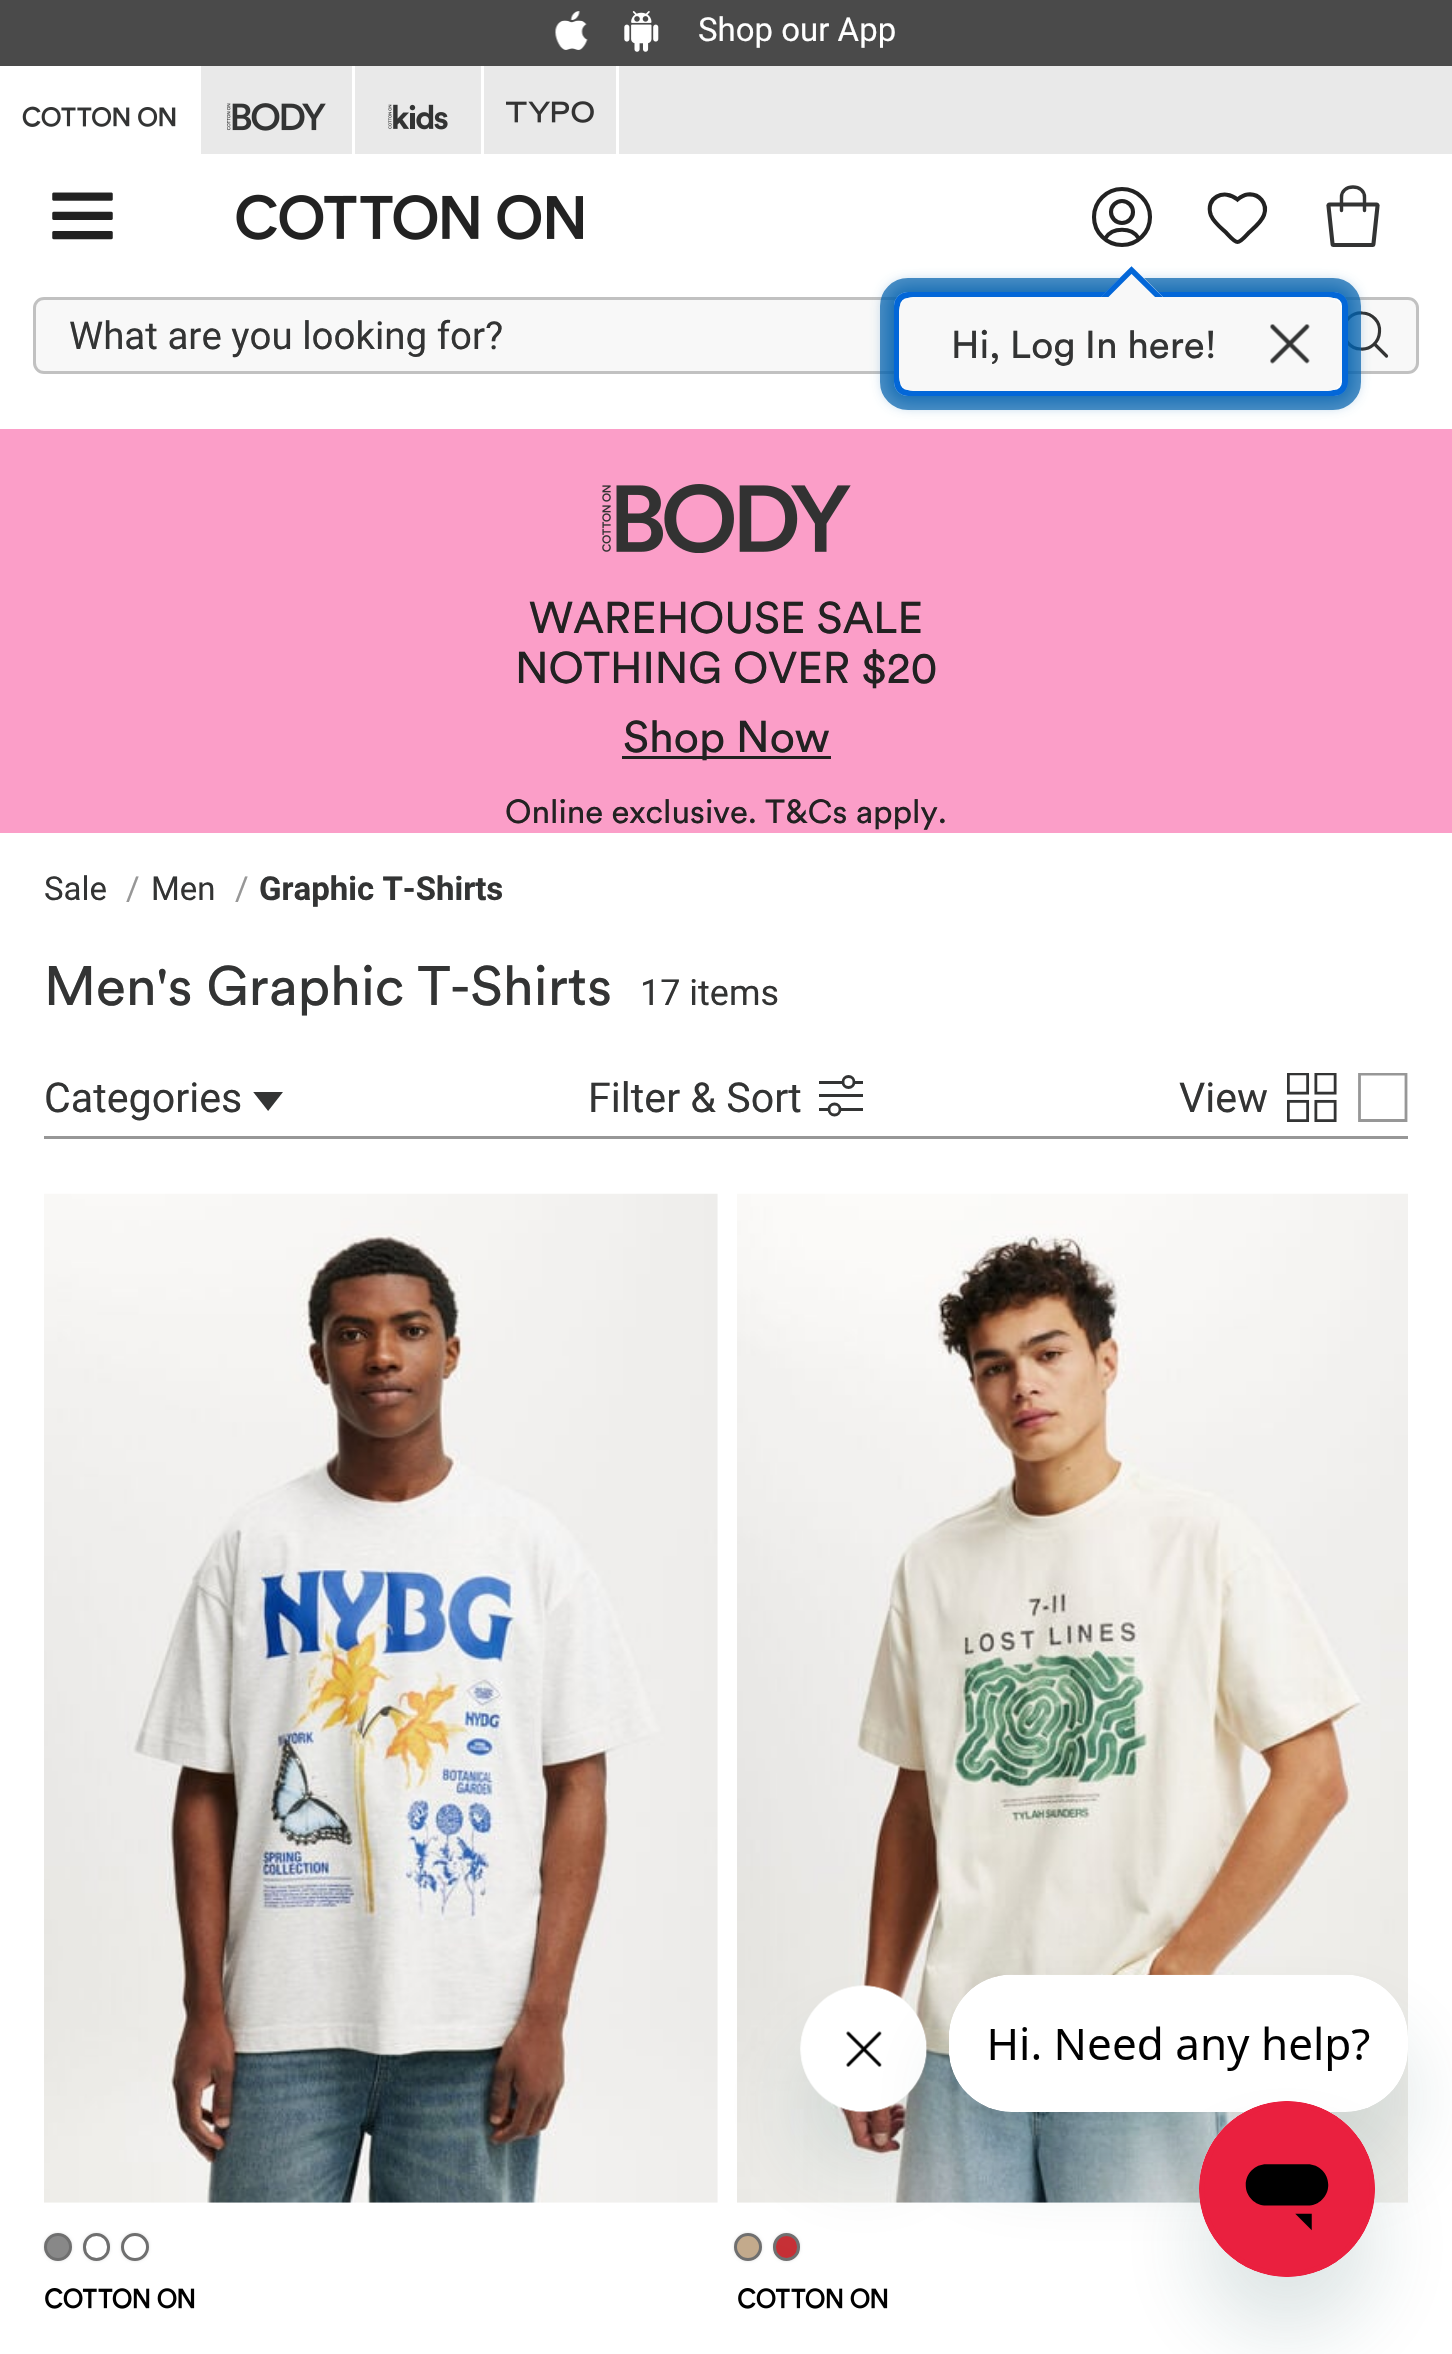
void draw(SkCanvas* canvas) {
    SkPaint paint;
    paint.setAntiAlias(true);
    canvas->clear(0xFFFFFFFF);
    paint.setColor(0xFFF8F8F8);
    canvas->drawRoundRect(SkRect::MakeXYWH(34.5f, 298.5f, 1383, 74), 9.5f, 9.5f, paint);
    paint.setStyle(SkPaint::kStroke_Style);
    paint.setStrokeWidth(3);
    paint.setColor(0xFFC1C1C1);
    canvas->drawRoundRect(SkRect::MakeXYWH(34.5f, 298.5f, 1383, 74), 9.5f, 9.5f, paint);
    SkFont font1(fontMgr->matchFamilyStyle("Roboto", SkFontStyle::Normal()), 38.5f);
    font1.setSubpixel(true);
    paint.setStyle(SkPaint::kFill_Style);
    paint.setColor(0xFF333434);
    canvas->drawString("What are you looking for?", 69, 349, font1, paint);
    paint.setStyle(SkPaint::kStroke_Style);
    paint.setStrokeWidth(3.2f);
    canvas->drawPath(SkPathBuilder().moveTo(1362.5f, 313).cubicTo(1352.5f, 312, 1344, 320, 1343.5f, 330).cubicTo(1343, 340, 1350.5f, 348.5f, 1360.5f, 349).cubicTo(1370.5f, 350, 1379, 342, 1379.5f, 332).cubicTo(1380.5f, 322, 1372.5f, 313.5f, 1362.5f, 313).close().detach(), paint);
    paint.setStrokeCap(SkPaint::kRound_Cap);
    canvas->drawPath(SkPathBuilder().moveTo(1375, 344.5f).lineTo(1386.5f, 356).detach(), paint);
    paint.setStyle(SkPaint::kFill_Style);
    paint.setColor(0xFF4A4A4A);
    canvas->drawRect(SkRect::MakeXYWH(0, 0, 1452, 66), paint);
    canvas->drawImageRect(SkImages::DeferredFromEncodedData(SkData::MakeFromFileName("img1.png")), SkRect::MakeXYWH(555, 11, 33, 39), SkSamplingOptions());
    canvas->drawImageRect(SkImages::DeferredFromEncodedData(SkData::MakeFromFileName("img2.png")), SkRect::MakeXYWH(624, 11, 35, 41), SkSamplingOptions());
    SkFont font2(fontMgr->matchFamilyStyle("Roboto", SkFontStyle::Normal()), 33);
    font2.setSubpixel(true);
    paint.setColor(0xFFFFFFFF);
    canvas->drawString("Shop our App", 698, 41, font2, paint);
    paint.setColor(0xFFE9E9E9);
    canvas->drawRect(SkRect::MakeXYWH(201, 66, 1251, 88), paint);
    canvas->drawImageRect(SkImages::DeferredFromEncodedData(SkData::MakeFromFileName("img3.png")), SkRect::MakeXYWH(22, 106, 154, 21), SkSamplingOptions());
    paint.setColor(0xFFFFFFFF);
    canvas->drawRect(SkRect::MakeXYWH(352, 66, 3, 91), paint);
    canvas->drawImageRect(SkImages::DeferredFromEncodedData(SkData::MakeFromFileName("img4.png")), SkRect::MakeXYWH(227, 103, 99, 28), SkSamplingOptions());
    canvas->drawRect(SkRect::MakeXYWH(481, 66, 3, 91), paint);
    canvas->drawImageRect(SkImages::DeferredFromEncodedData(SkData::MakeFromFileName("img5.png")), SkRect::MakeXYWH(388, 104, 60, 26), SkSamplingOptions());
    canvas->drawRect(SkRect::MakeXYWH(616, 66, 3, 91), paint);
    canvas->drawImageRect(SkImages::DeferredFromEncodedData(SkData::MakeFromFileName("img6.png")), SkRect::MakeXYWH(506, 101, 88, 22), SkSamplingOptions());
    canvas->drawImageRect(SkImages::DeferredFromEncodedData(SkData::MakeFromFileName("img7.png")), SkRect::MakeXYWH(52, 192, 61, 48), SkSamplingOptions());
    canvas->drawImageRect(SkImages::DeferredFromEncodedData(SkData::MakeFromFileName("img8.png")), SkRect::MakeXYWH(236, 194, 347, 46), SkSamplingOptions());
    paint.setStyle(SkPaint::kStroke_Style);
    paint.setStrokeWidth(4.1f);
    paint.setStrokeCap(SkPaint::kButt_Cap);
    paint.setColor(0xFF222222);
    canvas->drawCircle(1122, 217, 28, paint);
    canvas->drawCircle(1122, 212, 11, paint);
    paint.setStrokeCap(SkPaint::kRound_Cap);
    canvas->drawPath(SkPathBuilder().moveTo(1138.5f, 238).cubicTo(1131.5f, 227, 1112.5f, 227, 1105.5f, 238).detach(), paint);
    paint.setStrokeCap(SkPaint::kButt_Cap);
    canvas->drawPath(SkPathBuilder().moveTo(1237.5f, 242).cubicTo(1234, 242, 1228, 234.5f, 1226, 232.5f).cubicTo(1220.5f, 227.5f, 1214, 222.5f, 1211, 215.5f).cubicTo(1204.5f, 198, 1224, 188, 1237.5f, 199.5f).cubicTo(1240.5f, 197, 1243.5f, 195, 1247.5f, 194.5f).cubicTo(1259, 193, 1268, 203.5f, 1264, 215).cubicTo(1261.5f, 222, 1254.5f, 227.5f, 1249, 232.5f).cubicTo(1247, 234.5f, 1241, 242, 1237.5f, 242).close().detach(), paint);
    paint.setStrokeCap(SkPaint::kRound_Cap);
    paint.setColor(0xFF333434);
    canvas->drawPath(SkPathBuilder().moveTo(1376.5f, 204.5f).cubicTo(1377, 204.5f, 1378, 205, 1377.5f, 206).lineTo(1373.5f, 243.5f).cubicTo(1373.5f, 244.5f, 1373, 245, 1372.5f, 245).lineTo(1333.5f, 245).cubicTo(1333, 245, 1332.5f, 244.5f, 1332.5f, 243.5f).lineTo(1328.5f, 206).cubicTo(1328, 205, 1329, 204.5f, 1329.5f, 204.5f).close().detach(), paint);
    paint.setStrokeWidth(3.4f);
    canvas->drawPath(SkPathBuilder().moveTo(1341.5f, 210.5f).lineTo(1341.5f, 197).cubicTo(1341.5f, 191, 1346.5f, 187, 1353, 187).cubicTo(1359.5f, 187, 1364.5f, 191, 1364.5f, 197).lineTo(1364.5f, 210.5f).detach(), paint);
    paint.setStyle(SkPaint::kFill_Style);
    paint.setColor(0xB30060AC);
    paint.setMaskFilter(SkMaskFilter::MakeBlur(kNormal_SkBlurStyle, 8));
    canvas->drawRoundRect(SkRect::MakeXYWH(888, 286, 465, 116), 19, 19, paint);
    paint.setMaskFilter(nullptr);
    paint.setColor(0xFFFFFFFF);
    canvas->drawRoundRect(SkRect::MakeXYWH(894, 292, 454, 104), 14, 14, paint);
    paint.setStyle(SkPaint::kStroke_Style);
    paint.setStrokeWidth(14);
    paint.setStrokeCap(SkPaint::kButt_Cap);
    paint.setColor(0xB30060AC);
    canvas->drawRoundRect(SkRect::MakeXYWH(887, 285, 467, 118), 21, 21, paint);
    paint.setStrokeWidth(6);
    paint.setColor(0xFF0367D8);
    canvas->drawRoundRect(SkRect::MakeXYWH(897, 295, 448, 98), 11, 11, paint);
    paint.setStyle(SkPaint::kFill_Style);
    paint.setColor(0xFFF8F8F8);
    canvas->drawPath(SkPathBuilder().moveTo(1163, 297).lineTo(1132, 328).lineTo(1101, 297).lineTo(1132, 266).close().detach(), paint);
    paint.setStyle(SkPaint::kStroke_Style);
    paint.setStrokeWidth(5.5f);
    paint.setColor(0xFF0367D8);
    canvas->drawPath(SkPathBuilder().moveTo(1159, 297).lineTo(1131.5f, 324).lineTo(1104.5f, 297).lineTo(1131.5f, 270).close().detach(), paint);
    paint.setStyle(SkPaint::kFill_Style);
    paint.setColor(0xFFF8F8F8);
    canvas->drawRoundRect(SkRect::MakeXYWH(899, 297, 443, 94), 14, 14, paint);
    SkFont font3(fontMgr->matchFamilyStyle("Circular", SkFontStyle::Normal()), 38.5f);
    font3.setSubpixel(true);
    paint.setColor(0xFF333434);
    canvas->drawString("Hi, Log In here!", 951, 358, font3, paint);
    canvas->drawImageRect(SkImages::DeferredFromEncodedData(SkData::MakeFromFileName("img9.png")), SkRect::MakeXYWH(1270, 324, 40, 40), SkSamplingOptions());
    paint.setColor(0xFFFB9EC8);
    canvas->drawRect(SkRect::MakeXYWH(0, 429, 1452, 404), paint);
    canvas->drawImageRect(SkImages::DeferredFromEncodedData(SkData::MakeFromFileName("img10.png")), SkRect::MakeXYWH(602, 484, 249, 69), SkSamplingOptions());
    SkFont font4(fontMgr->matchFamilyStyle("Circular", SkFontStyle::Normal()), 44);
    font4.setSubpixel(true);
    paint.setColor(0xFF222222);
    canvas->drawString("WAREHOUSE SALE", 529, 633, font4, paint);
    canvas->drawString("NOTHING OVER $20", 515, 683, font4, paint);
    SkFont font5(fontMgr->matchFamilyStyle("Circular", SkFontStyle::Normal()), 33);
    font5.setSubpixel(true);
    canvas->drawString("Online exclusive. T&Cs apply.", 505, 823, font5, paint);
    canvas->drawRect(SkRect::MakeXYWH(622, 756, 209, 3), paint);
    canvas->drawString("Shop Now", 623, 752, font4, paint);
    paint.setColor(0xFF333434);
    canvas->drawString("Sale", 44, 900, font2, paint);
    paint.setColor(0xFF979797);
    canvas->drawString("/", 126, 900, font2, paint);
    paint.setColor(0xFF333434);
    canvas->drawString("Men", 151, 900, font2, paint);
    paint.setColor(0xFF979797);
    canvas->drawString("/", 235, 900, font2, paint);
    SkFont font6(fontMgr->matchFamilyStyle("Roboto", SkFontStyle::Bold()), 33);
    font6.setSubpixel(true);
    paint.setColor(0xFF333434);
    canvas->drawString("Graphic T-Shirts", 259, 900, font6, paint);
    SkFont font7(fontMgr->matchFamilyStyle("Circular", SkFontStyle::Normal()), 55);
    font7.setSubpixel(true);
    canvas->drawString("Men's Graphic T-Shirts", 44, 1005, font7, paint);
    SkFont font8(fontMgr->matchFamilyStyle("Roboto", SkFontStyle::Normal()), 36);
    font8.setSubpixel(true);
    canvas->drawString("17 items", 640, 1005, font8, paint);
    paint.setColor(0xFF979797);
    canvas->drawRect(SkRect::MakeXYWH(44, 1136, 1364, 3), paint);
    SkFont font9(fontMgr->matchFamilyStyle("Roboto", SkFontStyle::Normal()), 41.25f);
    font9.setSubpixel(true);
    paint.setColor(0xFF333434);
    canvas->drawString("Categories", 44, 1112, font9, paint);
    canvas->drawImageRect(SkImages::DeferredFromEncodedData(SkData::MakeFromFileName("img11.png")), SkRect::MakeXYWH(253, 1092, 30, 19), SkSamplingOptions());
    canvas->drawString("Filter & Sort", 588, 1112, font9, paint);
    canvas->drawRect(SkRect::MakeXYWH(819, 1081, 44, 3), paint);
    paint.setColor(0xFFFFFFFF);
    canvas->drawCircle(848.5f, 1082, 5.5f, paint);
    paint.setStyle(SkPaint::kStroke_Style);
    paint.setStrokeWidth(2.8f);
    paint.setColor(0xFF333434);
    canvas->drawCircle(848.5f, 1082, 5.5f, paint);
    paint.setStyle(SkPaint::kFill_Style);
    canvas->drawRect(SkRect::MakeXYWH(819, 1094, 44, 3), paint);
    canvas->drawRect(SkRect::MakeXYWH(819, 1108, 44, 3), paint);
    paint.setColor(0xFFFFFFFF);
    canvas->drawCircle(834.5f, 1109.5f, 5.5f, paint);
    paint.setStyle(SkPaint::kStroke_Style);
    paint.setColor(0xFF333434);
    canvas->drawCircle(834.5f, 1109.5f, 5.5f, paint);
    paint.setStyle(SkPaint::kFill_Style);
    canvas->drawString("View", 1179, 1112, font9, paint);
    canvas->drawImageRect(SkImages::DeferredFromEncodedData(SkData::MakeFromFileName("img12.png")), SkRect::MakeXYWH(1287, 1073, 50, 49), SkSamplingOptions());
    canvas->save();
    canvas->clipRect(SkRect::MakeXYWH(1356, 1073, 52, 49));
    paint.setStyle(SkPaint::kStroke_Style);
    paint.setColor(0xFF979797);
    canvas->drawPath(SkPathBuilder().moveTo(1359.5f, 1074).lineTo(1406, 1074).lineTo(1406, 1120.5f).lineTo(1359.5f, 1120.5f).close().detach(), paint);
    canvas->restore();
    canvas->drawImageRect(SkImages::DeferredFromEncodedData(SkData::MakeFromFileName("img13.png")), SkRect::MakeXYWH(44, 1193, 674, 1010), SkSamplingOptions());
    paint.setStyle(SkPaint::kFill_Style);
    paint.setColor(0xFFDFE0E1);
    paint.setMaskFilter(SkMaskFilter::MakeBlur(kNormal_SkBlurStyle, 1.5f));
    canvas->drawRoundRect(SkRect::MakeXYWH(44, 2233, 28, 28), 14, 14, paint);
    paint.setMaskFilter(nullptr);
    paint.setColor(0xFF888888);
    canvas->drawCircle(58, 2247, 12.5f, paint);
    paint.setStyle(SkPaint::kStroke_Style);
    paint.setStrokeWidth(3);
    paint.setColor(0xFF6F6F6F);
    canvas->drawCircle(58, 2247, 12.5f, paint);
    paint.setStyle(SkPaint::kFill_Style);
    paint.setColor(0xFFDFE0E1);
    paint.setMaskFilter(SkMaskFilter::MakeBlur(kNormal_SkBlurStyle, 1.5f));
    canvas->drawRoundRect(SkRect::MakeXYWH(83, 2233, 27, 28), 13.5f, 13.5f, paint);
    paint.setMaskFilter(nullptr);
    paint.setColor(0xFFFFFFFF);
    canvas->drawRoundRect(SkRect::MakeXYWH(84.5f, 2234.5f, 24, 25), 12, 12, paint);
    paint.setStyle(SkPaint::kStroke_Style);
    paint.setColor(0xFF6F6F6F);
    canvas->drawRoundRect(SkRect::MakeXYWH(84.5f, 2234.5f, 24, 25), 12, 12, paint);
    paint.setStyle(SkPaint::kFill_Style);
    paint.setColor(0xFFDFE0E1);
    paint.setMaskFilter(SkMaskFilter::MakeBlur(kNormal_SkBlurStyle, 1.5f));
    canvas->drawRoundRect(SkRect::MakeXYWH(121, 2233, 28, 28), 14, 14, paint);
    paint.setMaskFilter(nullptr);
    paint.setColor(0xFFFFFFFF);
    canvas->drawCircle(135, 2247, 12.5f, paint);
    paint.setStyle(SkPaint::kStroke_Style);
    paint.setColor(0xFF6F6F6F);
    canvas->drawCircle(135, 2247, 12.5f, paint);
    canvas->drawImageRect(SkImages::DeferredFromEncodedData(SkData::MakeFromFileName("img14.png")), SkRect::MakeXYWH(45, 2288, 150, 21), SkSamplingOptions());
    canvas->drawImageRect(SkImages::DeferredFromEncodedData(SkData::MakeFromFileName("img15.png")), SkRect::MakeXYWH(737, 1193, 671, 1010), SkSamplingOptions());
    paint.setStyle(SkPaint::kFill_Style);
    paint.setColor(0xFFDFE0E1);
    paint.setMaskFilter(SkMaskFilter::MakeBlur(kNormal_SkBlurStyle, 1.5f));
    canvas->drawRoundRect(SkRect::MakeXYWH(734, 2233, 28, 28), 14, 14, paint);
    paint.setMaskFilter(nullptr);
    paint.setColor(0xFFC3AA8C);
    canvas->drawCircle(748, 2247, 12.5f, paint);
    paint.setStyle(SkPaint::kStroke_Style);
    paint.setColor(0xFF6F6F6F);
    canvas->drawCircle(748, 2247, 12.5f, paint);
    paint.setStyle(SkPaint::kFill_Style);
    paint.setColor(0xFFDFE0E1);
    paint.setMaskFilter(SkMaskFilter::MakeBlur(kNormal_SkBlurStyle, 1.5f));
    canvas->drawRoundRect(SkRect::MakeXYWH(773, 2233, 27, 28), 13.5f, 13.5f, paint);
    paint.setMaskFilter(nullptr);
    paint.setColor(0xFFC62F35);
    canvas->drawRoundRect(SkRect::MakeXYWH(774.5f, 2234.5f, 24, 25), 12, 12, paint);
    paint.setStyle(SkPaint::kStroke_Style);
    paint.setColor(0xFF6F6F6F);
    canvas->drawRoundRect(SkRect::MakeXYWH(774.5f, 2234.5f, 24, 25), 12, 12, paint);
    canvas->drawImageRect(SkImages::DeferredFromEncodedData(SkData::MakeFromFileName("img14.png")), SkRect::MakeXYWH(738, 2288, 150, 21), SkSamplingOptions());
    paint.setStyle(SkPaint::kFill_Style);
    paint.setColor(0x2617494D);
    paint.setMaskFilter(SkMaskFilter::MakeBlur(kNormal_SkBlurStyle, 41));
    canvas->drawRoundRect(SkRect::MakeXYWH(800, 2041, 127, 126), 63, 63, paint);
    paint.setMaskFilter(nullptr);
    canvas->drawImageRect(SkImages::DeferredFromEncodedData(SkData::MakeFromFileName("img17.png")), SkRect::MakeXYWH(800, 1985, 128, 128), SkSamplingOptions());
    paint.setMaskFilter(SkMaskFilter::MakeBlur(kNormal_SkBlurStyle, 41));
    canvas->drawRoundRect(SkRect::MakeXYWH(949, 2030, 459, 137), 63, 63, paint);
    paint.setMaskFilter(nullptr);
    canvas->drawImageRect(SkImages::DeferredFromEncodedData(SkData::MakeFromFileName("img16.png")), SkRect::MakeXYWH(949, 1974, 459, 138), SkSamplingOptions());
    paint.setMaskFilter(SkMaskFilter::MakeBlur(kNormal_SkBlurStyle, 41));
    canvas->drawRoundRect(SkRect::MakeXYWH(1199, 2156, 176, 176), 88, 88, paint);
    paint.setMaskFilter(nullptr);
    canvas->drawImageRect(SkImages::DeferredFromEncodedData(SkData::MakeFromFileName("img18.png")), SkRect::MakeXYWH(1199, 2101, 176, 176), SkSamplingOptions());
}
